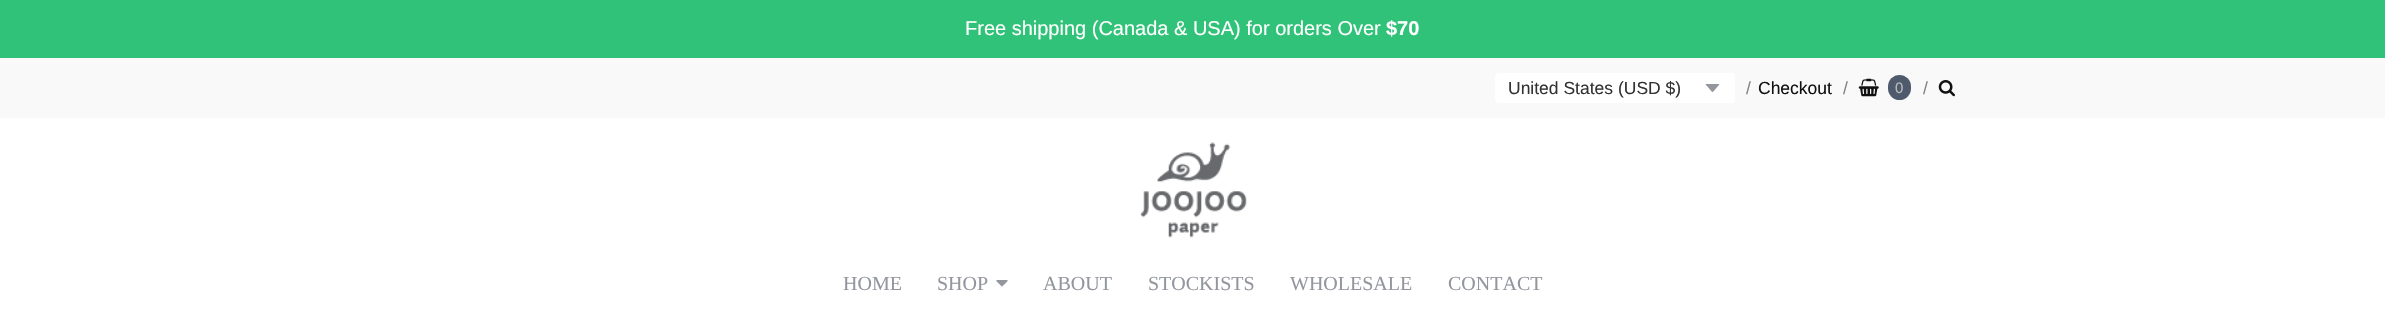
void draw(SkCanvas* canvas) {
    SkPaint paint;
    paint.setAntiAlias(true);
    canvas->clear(0xFF2FC278);
    SkFont font1(fontMgr->matchFamilyStyle("Liberation Sans", SkFontStyle::Normal()), 20);
    font1.setSubpixel(true);
    paint.setColor(0xFFFFFFFF);
    canvas->drawString("Free shipping (Canada & USA) for orders Over", 965, 35, font1, paint);
    SkFont font2(fontMgr->matchFamilyStyle("Liberation Sans", SkFontStyle::Bold()), 20);
    font2.setSubpixel(true);
    canvas->drawString("$70", 1386, 35, font2, paint);
    paint.setColor(0xFFF9F9F9);
    canvas->drawRect(SkRect::MakeXYWH(0, 58, 2385, 60), paint);
    paint.setColor(0xFFFFFFFF);
    canvas->drawRoundRect(SkRect::MakeXYWH(1495, 73, 240, 30), 4, 4, paint);
    canvas->drawImageRect(SkImages::DeferredFromEncodedData(SkData::MakeFromFileName("img1.png")), SkRect::MakeXYWH(1705, 84, 15, 8), SkSamplingOptions());
    SkFont font3(fontMgr->matchFamilyStyle("Liberation Sans", SkFontStyle::Normal()), 17.5f);
    font3.setSubpixel(true);
    paint.setColor(0xFF333333);
    canvas->drawString("United States (USD $)", 1508, 94, font3, paint);
    paint.setColor(0xFF858585);
    canvas->drawString("/", 1746, 94, font3, paint);
    paint.setColor(0xFF111111);
    canvas->drawString("Checkout", 1758, 94, font3, paint);
    paint.setColor(0xFF858585);
    canvas->drawString("/", 1843, 94, font3, paint);
    canvas->drawImageRect(SkImages::DeferredFromEncodedData(SkData::MakeFromFileName("img2.png")), SkRect::MakeXYWH(1858, 78, 21, 19), SkSamplingOptions());
    paint.setColor(0xFF4F5B6D);
    canvas->drawRoundRect(SkRect::MakeXYWH(1888, 75, 23, 25), 11.5f, 11.5f, paint);
    SkFont font4(fontMgr->matchFamilyStyle("Liberation Sans", SkFontStyle::Normal()), 15);
    font4.setSubpixel(true);
    paint.setColor(0xFFBABBBD);
    canvas->drawString("0", 1895, 93, font4, paint);
    paint.setColor(0xFF858585);
    canvas->drawString("/", 1923, 94, font3, paint);
    canvas->drawImageRect(SkImages::DeferredFromEncodedData(SkData::MakeFromFileName("img3.png")), SkRect::MakeXYWH(1938, 80, 17, 17), SkSamplingOptions());
    paint.setColor(0xFFFFFFFF);
    canvas->drawRect(SkRect::MakeXYWH(0, 118, 2385, 215), paint);
    canvas->drawImageRect(SkImages::DeferredFromEncodedData(SkData::MakeFromFileName("img4.png")), SkRect::MakeXYWH(1140, 142, 107, 96), SkSamplingOptions());
    SkFont font5(fontMgr->matchFamilyStyle("Liberation Serif", SkFontStyle::Normal()), 20);
    font5.setSubpixel(true);
    paint.setColor(0xFF93979D);
    canvas->drawString("HOME", 843, 290, font5, paint);
    canvas->drawString("SHOP", 937, 290, font5, paint);
    canvas->drawImageRect(SkImages::DeferredFromEncodedData(SkData::MakeFromFileName("img5.png")), SkRect::MakeXYWH(996, 280, 12, 7), SkSamplingOptions());
    canvas->drawString("ABOUT", 1043, 290, font5, paint);
    canvas->drawString("STOCKISTS", 1148, 290, font5, paint);
    canvas->drawString("WHOLESALE", 1290, 290, font5, paint);
    canvas->drawString("CONTACT", 1448, 290, font5, paint);
}
